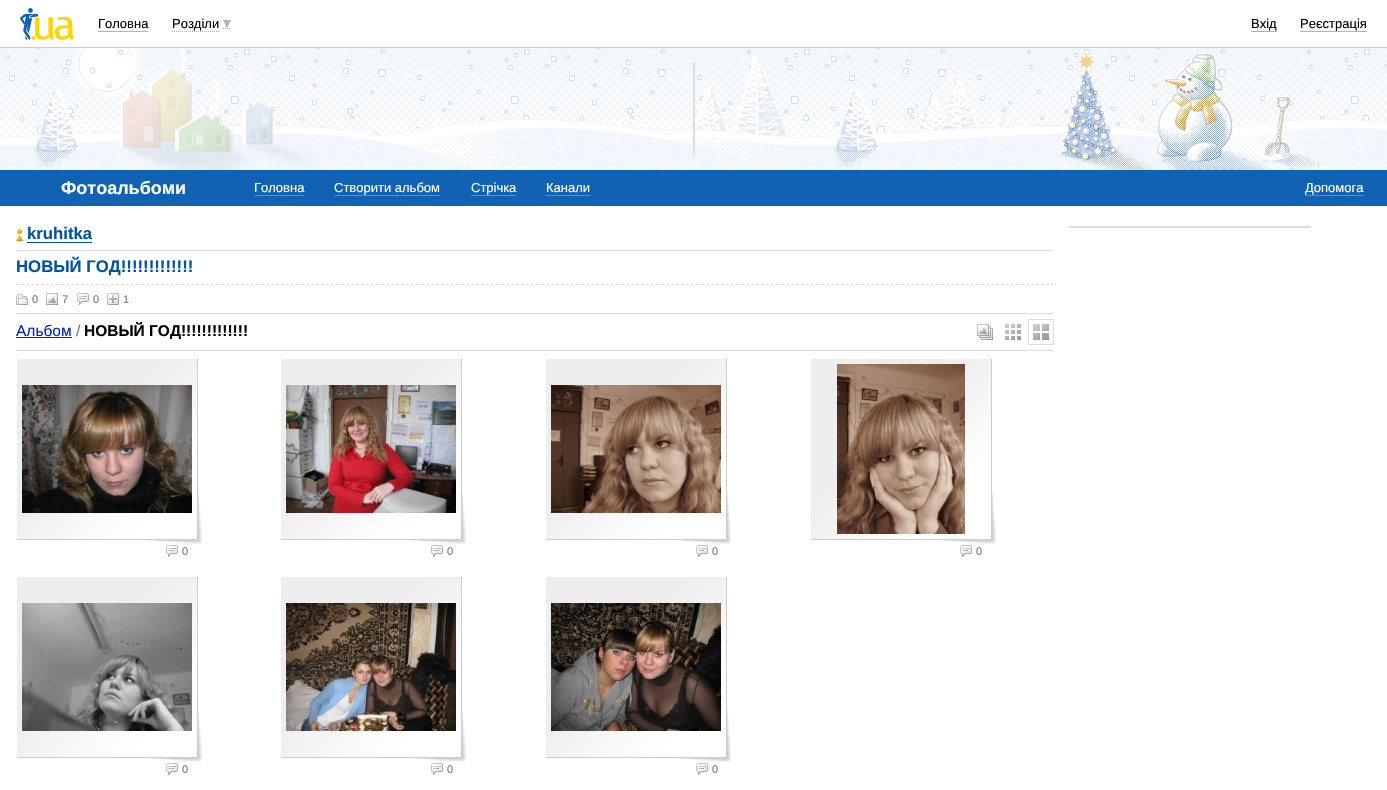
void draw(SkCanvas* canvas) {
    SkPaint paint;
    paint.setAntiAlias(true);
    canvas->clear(0xFFFFFFFF);
    paint.setColor(0xFFCCCCCC);
    canvas->drawRect(SkRect::MakeXYWH(0, 47, 1387, 1), paint);
    canvas->drawImageRect(SkImages::DeferredFromEncodedData(SkData::MakeFromFileName("img1.png")), SkRect::MakeXYWH(20, 8, 54, 32), SkSamplingOptions());
    SkFont font1(fontMgr->matchFamilyStyle("Liberation Sans", SkFontStyle::Normal()), 13);
    font1.setSubpixel(true);
    paint.setColor(0xFF000000);
    canvas->drawString("Головна", 98, 28, font1, paint);
    paint.setColor(0xFFB3B3B3);
    canvas->drawRect(SkRect::MakeXYWH(98, 31, 50, 1), paint);
    paint.setStyle(SkPaint::kStroke_Style);
    paint.setStrokeWidth(1);
    paint.setPathEffect(SkDashPathEffect::Make({{1, 1}}, 0));
    canvas->drawPath(SkPathBuilder().moveTo(172, 31.5f).lineTo(219, 31.5f).moveTo(223, 28.5f).lineTo(231, 28.5f).detach(), paint);
    paint.setPathEffect(nullptr);
    paint.setStyle(SkPaint::kFill_Style);
    paint.setColor(0xFF000000);
    canvas->drawString("Розділи", 172, 28, font1, paint);
    paint.setColor(0xFFB3B3B3);
    canvas->drawPath(SkPathBuilder().moveTo(223, 20).lineTo(231, 20).lineTo(227, 28).close().detach(), paint);
    paint.setColor(0xFF000000);
    canvas->drawString("Вхід", 1251, 28, font1, paint);
    paint.setColor(0xFFB3B3B3);
    canvas->drawRect(SkRect::MakeXYWH(1251, 31, 26, 1), paint);
    paint.setColor(0xFF000000);
    canvas->drawString("Реєстрація", 1300, 28, font1, paint);
    paint.setColor(0xFFB3B3B3);
    canvas->drawRect(SkRect::MakeXYWH(1300, 31, 67, 1), paint);
    canvas->drawImageRect(SkImages::DeferredFromEncodedData(SkData::MakeFromFileName("img2.png")), SkRect::MakeXYWH(0, 48, 1387, 122), SkSamplingOptions());
    paint.setColor(0xFFDDDDDD);
    canvas->drawRect(SkRect::MakeXYWH(693, 63, 2, 92), paint);
    paint.setColor(0xFF1162B3);
    canvas->drawRect(SkRect::MakeXYWH(0, 170, 1387, 36), paint);
    SkFont font2(fontMgr->matchFamilyStyle("Liberation Sans", SkFontStyle::Bold()), 18);
    font2.setSubpixel(true);
    paint.setColor(0xFFFFFFFF);
    canvas->drawString("Фотоальбоми", 61, 194, font2, paint);
    canvas->drawString("Головна", 254, 192, font1, paint);
    paint.setColor(0xFF5891CA);
    canvas->drawRect(SkRect::MakeXYWH(254, 195, 50, 1), paint);
    paint.setColor(0xFFFFFFFF);
    canvas->drawString("Створити альбом", 334, 192, font1, paint);
    paint.setColor(0xFF5891CA);
    canvas->drawRect(SkRect::MakeXYWH(334, 195, 106, 1), paint);
    paint.setColor(0xFFFFFFFF);
    canvas->drawString("Стрічка", 471, 192, font1, paint);
    paint.setColor(0xFF5891CA);
    canvas->drawRect(SkRect::MakeXYWH(471, 195, 45, 1), paint);
    paint.setColor(0xFFFFFFFF);
    canvas->drawString("Канали", 546, 192, font1, paint);
    paint.setColor(0xFF5891CA);
    canvas->drawRect(SkRect::MakeXYWH(546, 195, 44, 1), paint);
    paint.setColor(0xFFFFFFFF);
    canvas->drawString("Допомога", 1305, 192, font1, paint);
    paint.setColor(0xFF5891CA);
    canvas->drawRect(SkRect::MakeXYWH(1305, 195, 59, 1), paint);
    paint.setColor(0xFFDDDDDD);
    canvas->drawRect(SkRect::MakeXYWH(16, 250, 1037, 1), paint);
    paint.setColor(0xFF0053A5);
    canvas->drawRect(SkRect::MakeXYWH(27, 242, 65, 1), paint);
    canvas->drawImageRect(SkImages::DeferredFromEncodedData(SkData::MakeFromFileName("img3.png")), SkRect::MakeXYWH(16, 229, 7, 12), SkSamplingOptions());
    SkFont font3(fontMgr->matchFamilyStyle("Liberation Sans", SkFontStyle::Bold()), 16.75f);
    font3.setSubpixel(true);
    canvas->drawString("kruhitka", 27, 239, font3, paint);
    canvas->drawString("НОВЫЙ ГОД!!!!!!!!!!!!!", 16, 272, font3, paint);
    paint.setStyle(SkPaint::kStroke_Style);
    paint.setColor(0xFFDDDDDD);
    paint.setPathEffect(SkDashPathEffect::Make({{3, 2}}, 0));
    canvas->drawPath(SkPathBuilder().moveTo(16, 284.5f).lineTo(1053, 284.5f).detach(), paint);
    paint.setPathEffect(nullptr);
    paint.setStyle(SkPaint::kFill_Style);
    canvas->drawRect(SkRect::MakeXYWH(16, 313, 1037, 1), paint);
    canvas->drawImageRect(SkImages::DeferredFromEncodedData(SkData::MakeFromFileName("img4.png")), SkRect::MakeXYWH(16, 294, 12, 11), SkSamplingOptions());
    SkFont font4(fontMgr->matchFamilyStyle("Liberation Sans", SkFontStyle::Normal()), 11);
    font4.setSubpixel(true);
    paint.setColor(0xFF777777);
    canvas->drawString("0", 32, 303, font4, paint);
    canvas->drawImageRect(SkImages::DeferredFromEncodedData(SkData::MakeFromFileName("img5.png")), SkRect::MakeXYWH(46, 293, 12, 12), SkSamplingOptions());
    canvas->drawString("7", 62, 303, font4, paint);
    canvas->drawImageRect(SkImages::DeferredFromEncodedData(SkData::MakeFromFileName("img6.png")), SkRect::MakeXYWH(77, 293, 12, 12), SkSamplingOptions());
    canvas->drawString("0", 93, 303, font4, paint);
    canvas->drawImageRect(SkImages::DeferredFromEncodedData(SkData::MakeFromFileName("img7.png")), SkRect::MakeXYWH(107, 293, 12, 12), SkSamplingOptions());
    canvas->drawString("1", 123, 303, font4, paint);
    SkFont font5(fontMgr->matchFamilyStyle("Liberation Sans", SkFontStyle::Normal()), 15.5f);
    font5.setSubpixel(true);
    paint.setColor(0xFF0022CC);
    canvas->drawString("Альбом", 16, 336, font5, paint);
    canvas->drawRect(SkRect::MakeXYWH(16, 337, 56, 1), paint);
    paint.setColor(0xFF777777);
    canvas->drawString("/", 76, 336, font5, paint);
    SkFont font6(fontMgr->matchFamilyStyle("Liberation Sans", SkFontStyle::Bold()), 15.5f);
    font6.setSubpixel(true);
    paint.setColor(0xFF000000);
    canvas->drawString("НОВЫЙ ГОД!!!!!!!!!!!!!", 84, 336, font6, paint);
    canvas->drawImageRect(SkImages::DeferredFromEncodedData(SkData::MakeFromFileName("img8.png")), SkRect::MakeXYWH(977, 324, 16, 16), SkSamplingOptions());
    canvas->drawImageRect(SkImages::DeferredFromEncodedData(SkData::MakeFromFileName("img9.png")), SkRect::MakeXYWH(1005, 324, 16, 16), SkSamplingOptions());
    paint.setStyle(SkPaint::kStroke_Style);
    paint.setColor(0xFFDDDDDD);
    canvas->drawRect(SkRect::MakeXYWH(1028.5f, 319.5f, 25, 25), paint);
    canvas->drawImageRect(SkImages::DeferredFromEncodedData(SkData::MakeFromFileName("img10.png")), SkRect::MakeXYWH(1033, 324, 16, 16), SkSamplingOptions());
    paint.setStyle(SkPaint::kFill_Style);
    canvas->drawRect(SkRect::MakeXYWH(16, 350, 1037, 1), paint);
    canvas->drawImageRect(SkImages::DeferredFromEncodedData(SkData::MakeFromFileName("img11.png")), SkRect::MakeXYWH(17, 359, 185, 185), SkSamplingOptions());
    canvas->drawImageRect(SkImages::DeferredFromEncodedData(SkData::MakeFromFileName("img12.png")), SkRect::MakeXYWH(22, 385, 170, 128), SkSamplingOptions());
    canvas->drawImageRect(SkImages::DeferredFromEncodedData(SkData::MakeFromFileName("img6.png")), SkRect::MakeXYWH(166, 545, 12, 12), SkSamplingOptions());
    paint.setColor(0xFF777777);
    canvas->drawString("0", 182, 555, font4, paint);
    canvas->drawImageRect(SkImages::DeferredFromEncodedData(SkData::MakeFromFileName("img11.png")), SkRect::MakeXYWH(281, 359, 185, 185), SkSamplingOptions());
    canvas->drawImageRect(SkImages::DeferredFromEncodedData(SkData::MakeFromFileName("img13.png")), SkRect::MakeXYWH(286, 385, 170, 128), SkSamplingOptions());
    canvas->drawImageRect(SkImages::DeferredFromEncodedData(SkData::MakeFromFileName("img6.png")), SkRect::MakeXYWH(431, 545, 12, 12), SkSamplingOptions());
    canvas->drawString("0", 447, 555, font4, paint);
    canvas->drawImageRect(SkImages::DeferredFromEncodedData(SkData::MakeFromFileName("img11.png")), SkRect::MakeXYWH(546, 359, 185, 185), SkSamplingOptions());
    canvas->drawImageRect(SkImages::DeferredFromEncodedData(SkData::MakeFromFileName("img14.png")), SkRect::MakeXYWH(551, 385, 170, 128), SkSamplingOptions());
    canvas->drawImageRect(SkImages::DeferredFromEncodedData(SkData::MakeFromFileName("img6.png")), SkRect::MakeXYWH(696, 545, 12, 12), SkSamplingOptions());
    canvas->drawString("0", 712, 555, font4, paint);
    canvas->drawImageRect(SkImages::DeferredFromEncodedData(SkData::MakeFromFileName("img11.png")), SkRect::MakeXYWH(811, 359, 185, 185), SkSamplingOptions());
    canvas->drawImageRect(SkImages::DeferredFromEncodedData(SkData::MakeFromFileName("img15.png")), SkRect::MakeXYWH(837, 364, 128, 170), SkSamplingOptions());
    canvas->drawImageRect(SkImages::DeferredFromEncodedData(SkData::MakeFromFileName("img6.png")), SkRect::MakeXYWH(960, 545, 12, 12), SkSamplingOptions());
    canvas->drawString("0", 976, 555, font4, paint);
    canvas->drawImageRect(SkImages::DeferredFromEncodedData(SkData::MakeFromFileName("img11.png")), SkRect::MakeXYWH(17, 577, 185, 185), SkSamplingOptions());
    canvas->drawImageRect(SkImages::DeferredFromEncodedData(SkData::MakeFromFileName("img16.png")), SkRect::MakeXYWH(22, 603, 170, 128), SkSamplingOptions());
    canvas->drawImageRect(SkImages::DeferredFromEncodedData(SkData::MakeFromFileName("img6.png")), SkRect::MakeXYWH(166, 763, 12, 12), SkSamplingOptions());
    canvas->drawString("0", 182, 773, font4, paint);
    canvas->drawImageRect(SkImages::DeferredFromEncodedData(SkData::MakeFromFileName("img11.png")), SkRect::MakeXYWH(281, 577, 185, 185), SkSamplingOptions());
    canvas->drawImageRect(SkImages::DeferredFromEncodedData(SkData::MakeFromFileName("img17.png")), SkRect::MakeXYWH(286, 603, 170, 128), SkSamplingOptions());
    canvas->drawImageRect(SkImages::DeferredFromEncodedData(SkData::MakeFromFileName("img6.png")), SkRect::MakeXYWH(431, 763, 12, 12), SkSamplingOptions());
    canvas->drawString("0", 447, 773, font4, paint);
    canvas->drawImageRect(SkImages::DeferredFromEncodedData(SkData::MakeFromFileName("img11.png")), SkRect::MakeXYWH(546, 577, 185, 185), SkSamplingOptions());
    canvas->drawImageRect(SkImages::DeferredFromEncodedData(SkData::MakeFromFileName("img18.png")), SkRect::MakeXYWH(551, 603, 170, 128), SkSamplingOptions());
    canvas->drawImageRect(SkImages::DeferredFromEncodedData(SkData::MakeFromFileName("img6.png")), SkRect::MakeXYWH(696, 763, 12, 12), SkSamplingOptions());
    canvas->drawString("0", 712, 773, font4, paint);
    paint.setColor(0xFFDDDDDD);
    canvas->drawRect(SkRect::MakeXYWH(1069, 226, 242, 2), paint);
}
